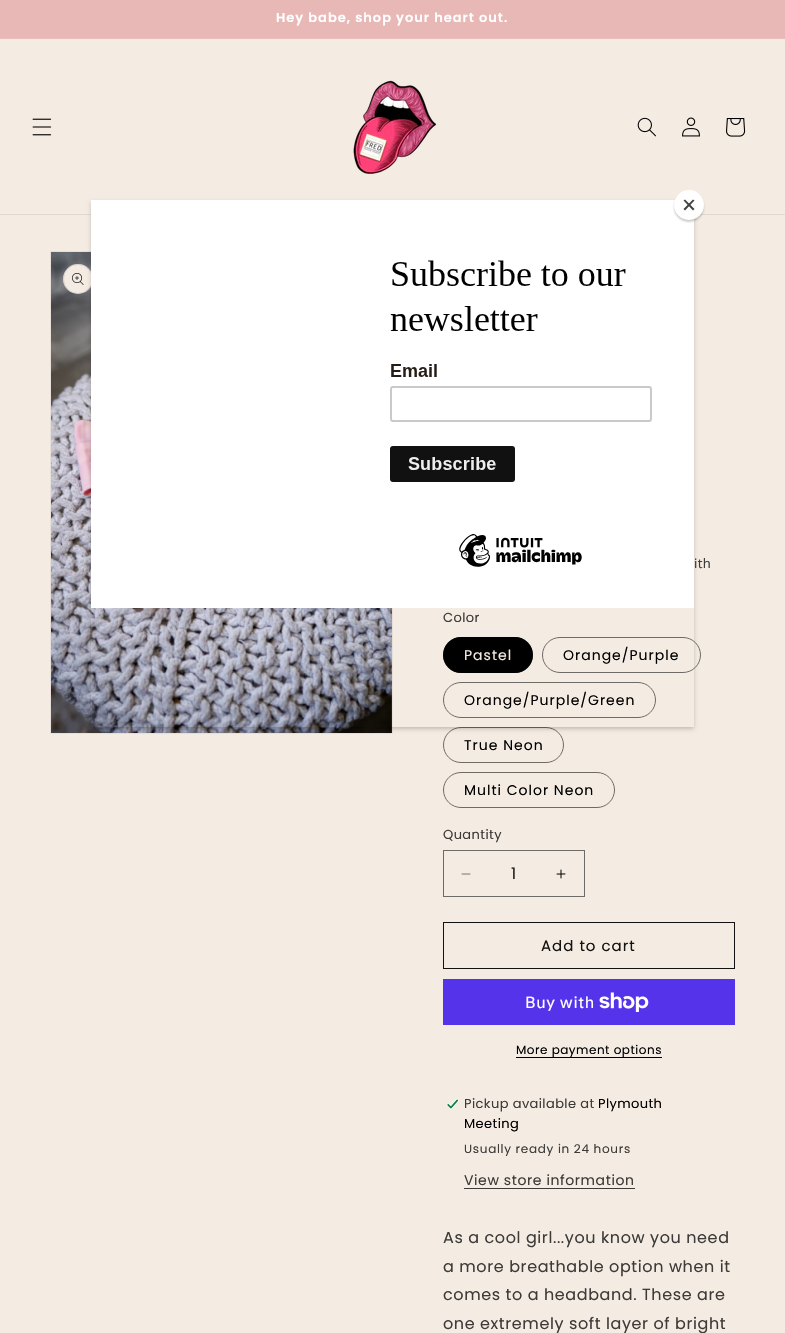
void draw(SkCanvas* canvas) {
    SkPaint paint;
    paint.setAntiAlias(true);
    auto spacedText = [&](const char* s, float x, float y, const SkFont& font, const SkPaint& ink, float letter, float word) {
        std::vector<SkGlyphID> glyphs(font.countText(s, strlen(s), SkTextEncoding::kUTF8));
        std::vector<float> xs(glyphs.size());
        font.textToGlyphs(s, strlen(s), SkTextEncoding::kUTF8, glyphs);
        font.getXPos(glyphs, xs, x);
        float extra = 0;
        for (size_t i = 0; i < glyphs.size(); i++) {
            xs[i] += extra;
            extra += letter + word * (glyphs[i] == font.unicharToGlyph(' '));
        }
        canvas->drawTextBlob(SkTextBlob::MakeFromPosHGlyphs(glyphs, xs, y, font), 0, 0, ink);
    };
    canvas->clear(0xFFF4ECE3);
    paint.setColor(0xFFE8B8B6);
    canvas->drawRect(SkRect::MakeXYWH(0, 0, 785, 38), paint);
    paint.setColor(0xFFEABEBC);
    canvas->drawRect(SkRect::MakeXYWH(0, 38, 785, 1), paint);
    SkFont font1(fontMgr->matchFamilyStyle("Poppins", SkFontStyle(600, SkFontStyle::kNormal_Width, SkFontStyle::kUpright_Slant)), 13);
    font1.setSubpixel(true);
    paint.setColor(0xFFFFFFFF);
    spacedText("Hey babe, shop your heart out.", 276, 22, font1, paint, 1, 0);
    paint.setColor(0xFFE0D9D1);
    canvas->drawRect(SkRect::MakeXYWH(0, 214, 785, 1), paint);
    canvas->drawImageRect(SkImages::DeferredFromEncodedData(SkData::MakeFromFileName("img1.png")), SkRect::MakeXYWH(32, 118, 20, 18), SkSamplingOptions());
    canvas->drawImageRect(SkImages::DeferredFromEncodedData(SkData::MakeFromFileName("img2.png")), SkRect::MakeXYWH(353, 80, 84, 94), SkSamplingOptions());
    canvas->drawImageRect(SkImages::DeferredFromEncodedData(SkData::MakeFromFileName("img3.png")), SkRect::MakeXYWH(637, 117, 19, 20), SkSamplingOptions());
    canvas->drawImageRect(SkImages::DeferredFromEncodedData(SkData::MakeFromFileName("img4.png")), SkRect::MakeXYWH(682, 117, 18, 20), SkSamplingOptions());
    canvas->drawImageRect(SkImages::DeferredFromEncodedData(SkData::MakeFromFileName("img5.png")), SkRect::MakeXYWH(726, 118, 20, 19), SkSamplingOptions());
    paint.setStyle(SkPaint::kStroke_Style);
    paint.setStrokeWidth(1);
    paint.setColor(0xFFE8E0D8);
    canvas->drawRect(SkRect::MakeXYWH(50.5f, 251.5f, 342, 482), paint);
    canvas->drawImageRect(SkImages::DeferredFromEncodedData(SkData::MakeFromFileName("img7.png")), SkRect::MakeXYWH(51, 252, 341, 481), SkSamplingOptions());
    paint.setStyle(SkPaint::kFill_Style);
    paint.setColor(0xFFF4ECE3);
    canvas->drawCircle(78, 279, 15, paint);
    paint.setStyle(SkPaint::kStroke_Style);
    paint.setColor(0x1A000000);
    canvas->drawCircle(78, 279, 14.5f, paint);
    paint.setStyle(SkPaint::kFill_Style);
    paint.setColor(0xFF000000);
    canvas->drawRoundRect(SkRect::MakeXYWH(443, 637, 90, 36), 18, 18, paint);
    paint.setStyle(SkPaint::kStroke_Style);
    paint.setColor(0x8C000000);
    canvas->drawRoundRect(SkRect::MakeXYWH(443.5f, 637.5f, 89, 35), 17.5f, 17.5f, paint);
    paint.setColor(0xFF6E6A66);
    canvas->drawRoundRect(SkRect::MakeXYWH(542.5f, 637.5f, 158, 35), 17.5f, 17.5f, paint);
    canvas->drawRoundRect(SkRect::MakeXYWH(443.5f, 682.5f, 212, 35), 17.5f, 17.5f, paint);
    canvas->drawRoundRect(SkRect::MakeXYWH(443.5f, 727.5f, 120, 35), 17.5f, 17.5f, paint);
    canvas->save();
    canvas->clipPath(SkPathBuilder(SkPathFillType::kEvenOdd).moveTo(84, 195).lineTo(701, 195).lineTo(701, 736).lineTo(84, 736).close().moveTo(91, 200).lineTo(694, 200).lineTo(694, 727).lineTo(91, 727).close().detach(), true);
    paint.setStyle(SkPaint::kFill_Style);
    paint.setColor(0x33000000);
    paint.setMaskFilter(SkMaskFilter::MakeBlur(kNormal_SkBlurStyle, 2));
    canvas->drawRect(SkRect::MakeXYWH(91, 202, 603, 527), paint);
    paint.setMaskFilter(nullptr);
    canvas->restore();
    canvas->drawImageRect(SkImages::DeferredFromEncodedData(SkData::MakeFromFileName("img6.png")), SkRect::MakeXYWH(91, 200, 603, 408), SkSamplingOptions());
    paint.setMaskFilter(SkMaskFilter::MakeBlur(kNormal_SkBlurStyle, 1));
    canvas->drawRoundRect(SkRect::MakeXYWH(674, 192, 30, 30), 15, 15, paint);
    paint.setMaskFilter(nullptr);
    paint.setColor(0xFFFFFFFF);
    canvas->drawCircle(689, 205, 15, paint);
    paint.setColor(0xFF414141);
    canvas->drawPath(SkPathBuilder().moveTo(693, 199.5f).lineTo(694.5f, 200.5f).lineTo(685, 210.5f).lineTo(683.5f, 209).close().detach(), paint);
    canvas->drawPath(SkPathBuilder().moveTo(683.5f, 200.5f).lineTo(685, 199.5f).lineTo(694.5f, 209).lineTo(693, 210.5f).close().detach(), paint);
    canvas->drawImageRect(SkImages::DeferredFromEncodedData(SkData::MakeFromFileName("img8.png")), SkRect::MakeXYWH(72, 273, 12, 12), SkSamplingOptions());
    SkFont font2(fontMgr->matchFamilyStyle("Noto Sans", SkFontStyle::Normal()), 13);
    font2.setSubpixel(true);
    paint.setColor(0xFF3D3B39);
    spacedText("ith", 694, 568, font2, paint, 0.4f, 0);
    SkFont font3(fontMgr->matchFamilyStyle("Poppins", SkFontStyle::Normal()), 13);
    font3.setSubpixel(true);
    spacedText("Color", 443, 622, font3, paint, 0.4f, 0);
    SkFont font4(fontMgr->matchFamilyStyle("Poppins", SkFontStyle::Normal()), 14);
    font4.setSubpixel(true);
    paint.setColor(0xFFF4ECE3);
    spacedText("Pastel", 464, 660, font4, paint, 1, 0);
    paint.setColor(0xFF000000);
    spacedText("Orange/Purple", 563, 660, font4, paint, 1, 0);
    spacedText("Orange/Purple/Green", 464, 705, font4, paint, 1, 0);
    spacedText("True Neon", 464, 750, font4, paint, 1, 0);
    paint.setStyle(SkPaint::kStroke_Style);
    paint.setColor(0xFF6E6A66);
    canvas->drawRoundRect(SkRect::MakeXYWH(443.5f, 772.5f, 171, 35), 17.5f, 17.5f, paint);
    paint.setStyle(SkPaint::kFill_Style);
    paint.setColor(0xFF000000);
    spacedText("Multi Color Neon", 464, 795, font4, paint, 1, 0);
    paint.setColor(0xFF3D3B39);
    spacedText("Quantity", 443, 839, font3, paint, 0.4f, 0);
    canvas->drawImageRect(SkImages::DeferredFromEncodedData(SkData::MakeFromFileName("img9.png")), SkRect::MakeXYWH(461, 873, 10, 2), SkSamplingOptions());
    canvas->drawImageRect(SkImages::DeferredFromEncodedData(SkData::MakeFromFileName("img10.png")), SkRect::MakeXYWH(556, 869, 10, 10), SkSamplingOptions());
    paint.setStyle(SkPaint::kStroke_Style);
    paint.setColor(0xFF6E6A66);
    canvas->drawRect(SkRect::MakeXYWH(443.5f, 850.5f, 141, 46), paint);
    SkFont font5(fontMgr->matchFamilyStyle("Poppins", SkFontStyle::Normal()), 16);
    font5.setSubpixel(true);
    paint.setStyle(SkPaint::kFill_Style);
    paint.setColor(0xFF252322);
    canvas->drawString("1", 511, 879, font5, paint);
    paint.setStyle(SkPaint::kStroke_Style);
    paint.setColor(0xFF121212);
    canvas->drawRect(SkRect::MakeXYWH(443.5f, 922.5f, 291, 46), paint);
    SkFont font6(fontMgr->matchFamilyStyle("Poppins", SkFontStyle::Normal()), 15);
    font6.setSubpixel(true);
    paint.setStyle(SkPaint::kFill_Style);
    spacedText("Add to cart", 541, 951, font6, paint, 1, 0);
    paint.setColor(0xFF5433EB);
    canvas->drawRect(SkRect::MakeXYWH(443, 979, 292, 46), paint);
    SkFont font7(fontMgr->matchFamilyStyle("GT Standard", SkFontStyle::Normal()), 16);
    font7.setSubpixel(true);
    paint.setColor(0xFFFFFFFF);
    spacedText("Buy with", 525, 1008, font7, paint, 0.6f, 0);
    canvas->drawImageRect(SkImages::DeferredFromEncodedData(SkData::MakeFromFileName("img11.png")), SkRect::MakeXYWH(599, 992, 50, 20), SkSamplingOptions());
    paint.setColor(0xFF000000);
    canvas->drawRect(SkRect::MakeXYWH(516, 1057, 146, 1), paint);
    SkFont font8(fontMgr->matchFamilyStyle("Poppins", SkFontStyle::Normal()), 12);
    font8.setSubpixel(true);
    spacedText("More payment options", 516, 1054, font8, paint, 0.5f, 0);
    canvas->drawImageRect(SkImages::DeferredFromEncodedData(SkData::MakeFromFileName("img12.png")), SkRect::MakeXYWH(446, 1098, 13, 12), SkSamplingOptions());
    paint.setColor(0xFF3D3B39);
    spacedText("Pickup available at", 464, 1108, font3, paint, 0.4f, 0);
    paint.setColor(0xFF000000);
    spacedText("Plymouth", 598, 1108, font3, paint, 0.4f, 0);
    spacedText("Meeting", 464, 1128, font3, paint, 0.4f, 0);
    paint.setColor(0xFF3D3B39);
    spacedText("Usually ready in 24 hours", 464, 1153, font8, paint, 0.7f, 0);
    spacedText("View store information", 464, 1185, font4, paint, 0.6f, 0);
    canvas->drawRect(SkRect::MakeXYWH(464, 1188, 171, 1), paint);
    spacedText("As a cool girl...you know you need", 443, 1243, font5, paint, 0.6f, 0);
    spacedText("a more breathable option when it", 443, 1272, font5, paint, 0.6f, 0);
    spacedText("comes to a headband. These are", 443, 1300, font5, paint, 0.6f, 0);
    spacedText("one extremely soft layer of bright", 443, 1329, font5, paint, 0.6f, 0);
}
